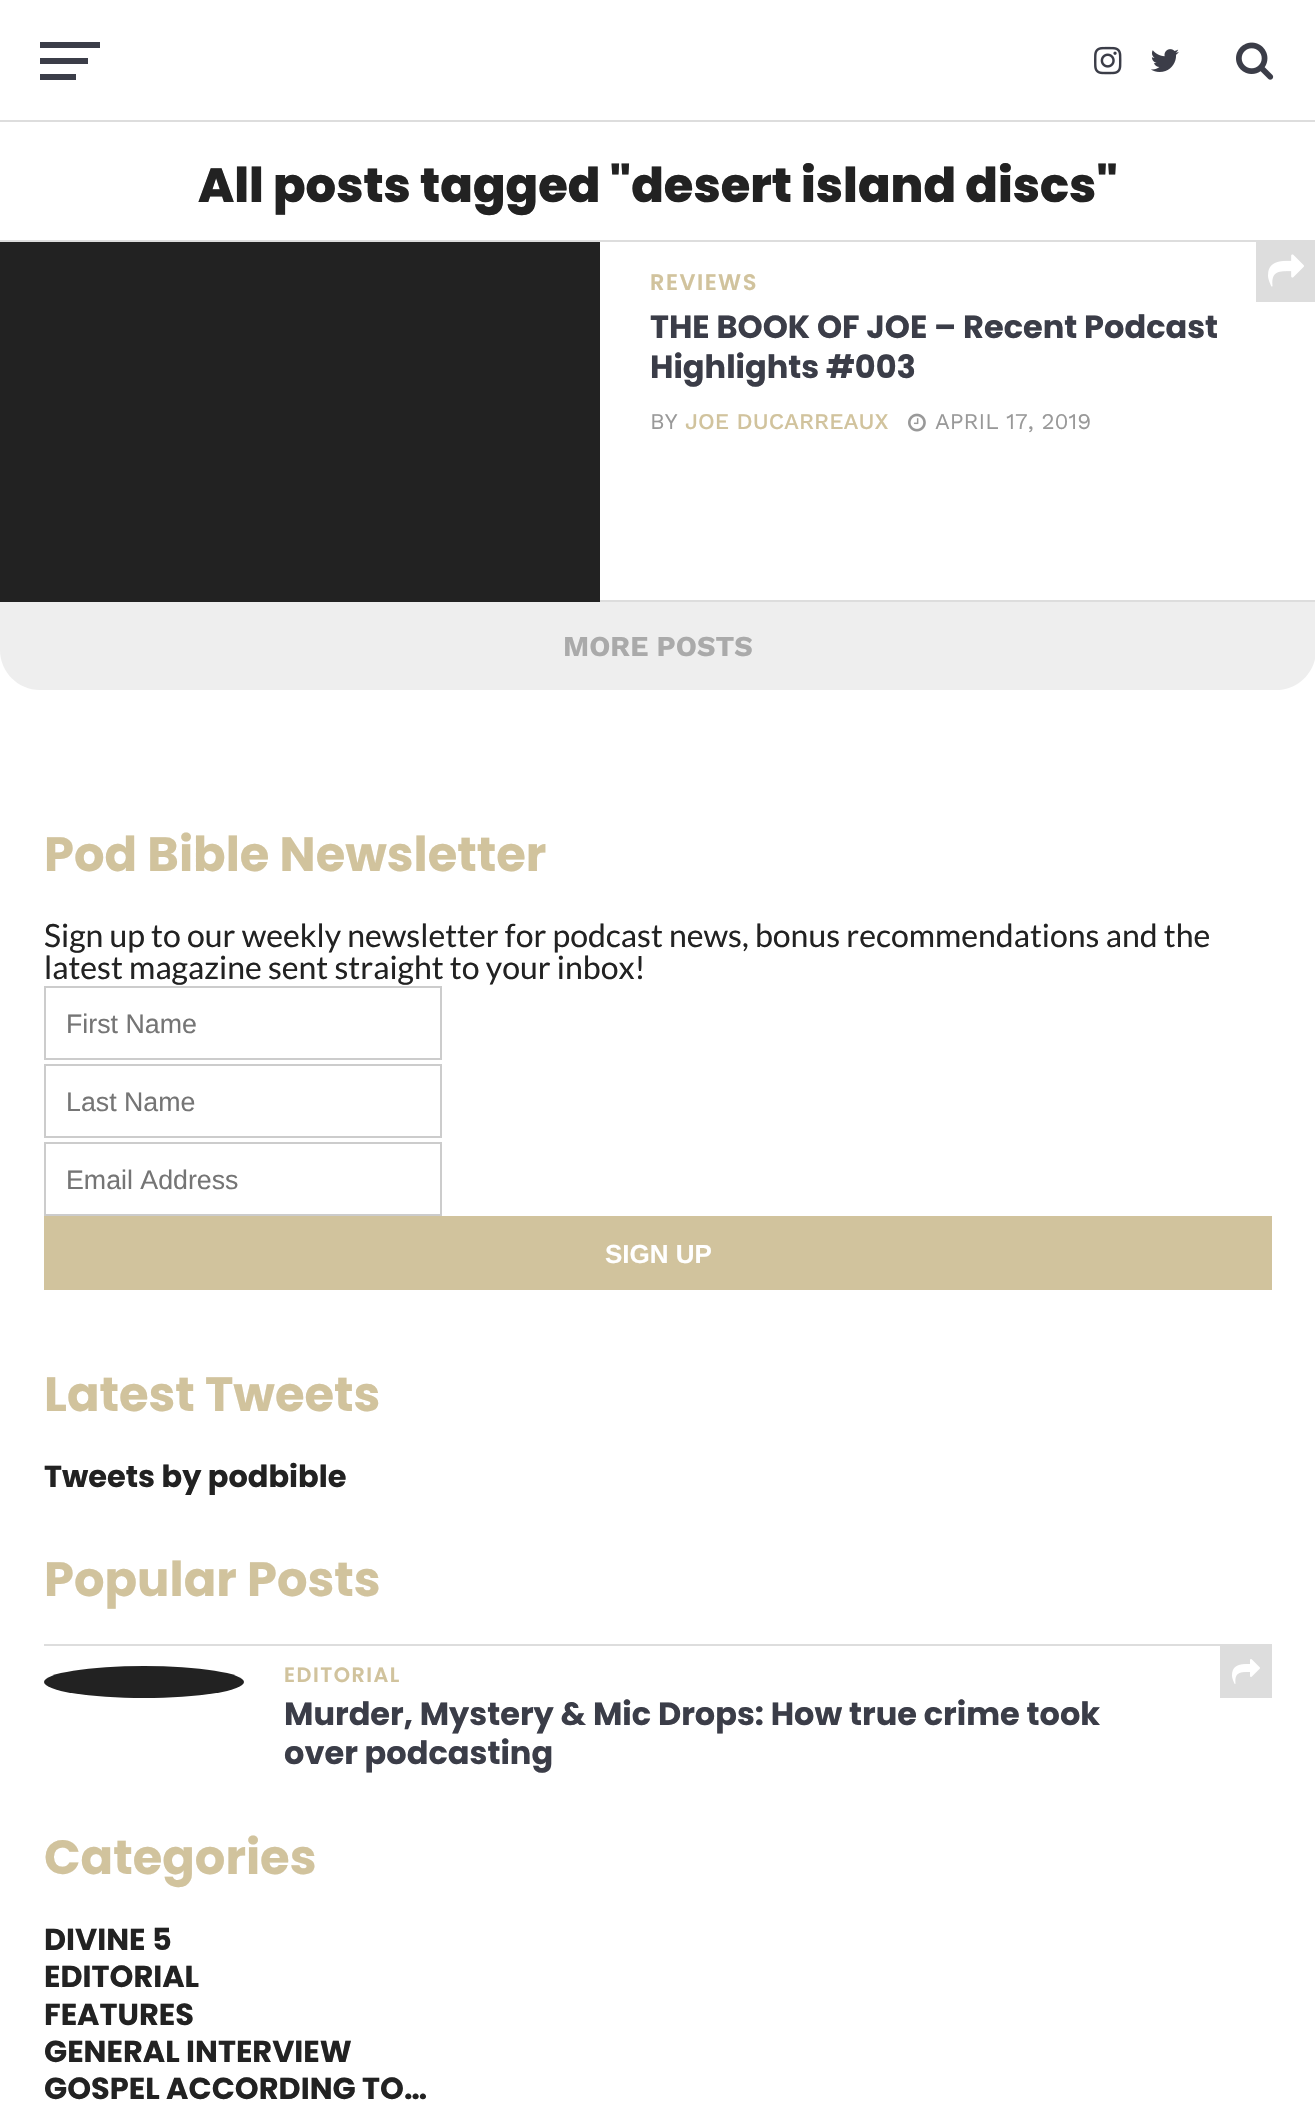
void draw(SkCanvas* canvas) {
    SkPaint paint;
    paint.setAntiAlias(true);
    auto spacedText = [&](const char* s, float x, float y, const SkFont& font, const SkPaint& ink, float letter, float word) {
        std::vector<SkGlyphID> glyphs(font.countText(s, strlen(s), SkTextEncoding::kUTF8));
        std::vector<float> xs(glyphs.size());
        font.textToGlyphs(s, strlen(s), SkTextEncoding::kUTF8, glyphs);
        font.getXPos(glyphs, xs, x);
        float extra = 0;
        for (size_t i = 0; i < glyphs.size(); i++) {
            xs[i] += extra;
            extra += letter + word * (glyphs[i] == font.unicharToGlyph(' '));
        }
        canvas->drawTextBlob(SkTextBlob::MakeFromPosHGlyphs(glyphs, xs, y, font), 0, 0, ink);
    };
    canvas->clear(0xFFFFFFFF);
    paint.setColor(0xFF3B3D48);
    canvas->drawRect(SkRect::MakeXYWH(40, 42, 60, 6), paint);
    canvas->drawRect(SkRect::MakeXYWH(40, 58, 48, 6), paint);
    canvas->drawRect(SkRect::MakeXYWH(40, 74, 36, 6), paint);
    canvas->drawImageRect(SkImages::DeferredFromEncodedData(SkData::MakeFromFileName("img1.png")), SkRect::MakeXYWH(1094, 46, 28, 29), SkSamplingOptions());
    canvas->drawImageRect(SkImages::DeferredFromEncodedData(SkData::MakeFromFileName("img2.png")), SkRect::MakeXYWH(1151, 49, 28, 23), SkSamplingOptions());
    canvas->drawImageRect(SkImages::DeferredFromEncodedData(SkData::MakeFromFileName("img3.png")), SkRect::MakeXYWH(1236, 42, 38, 38), SkSamplingOptions());
    paint.setColor(0xFFDDDDDD);
    canvas->drawRect(SkRect::MakeXYWH(0, 120, 1315, 2), paint);
    SkFont font1(fontMgr->matchFamilyStyle("Poppins", SkFontStyle(800, SkFontStyle::kNormal_Width, SkFontStyle::kUpright_Slant)), 48);
    font1.setSubpixel(true);
    paint.setColor(0xFF222222);
    canvas->drawString("All posts tagged \"desert island discs\"", 198, 202, font1, paint);
    paint.setColor(0xFFDDDDDD);
    canvas->drawRect(SkRect::MakeXYWH(0, 240, 1315, 2), paint);
    paint.setColor(0xFF222222);
    canvas->drawRect(SkRect::MakeXYWH(0, 242, 600, 360), paint);
    paint.setColor(0xFFDDDDDD);
    canvas->drawRect(SkRect::MakeXYWH(600, 600, 715, 2), paint);
    SkFont font2(fontMgr->matchFamilyStyle("Poppins", SkFontStyle(600, SkFontStyle::kNormal_Width, SkFontStyle::kUpright_Slant)), 22.5f);
    font2.setSubpixel(true);
    paint.setColor(0xFFD1C39D);
    spacedText("REVIEWS", 650, 290, font2, paint, 1.5f, 0);
    paint.setColor(0xFFDDDDDD);
    canvas->drawRect(SkRect::MakeXYWH(1256, 242, 59, 60), paint);
    canvas->drawImageRect(SkImages::DeferredFromEncodedData(SkData::MakeFromFileName("img4.png")), SkRect::MakeXYWH(1268, 254, 36, 33), SkSamplingOptions());
    SkFont font3(fontMgr->matchFamilyStyle("Poppins", SkFontStyle::Bold()), 32);
    font3.setSubpixel(true);
    paint.setColor(0xFF3B3D48);
    canvas->drawString("THE BOOK OF JOE – Recent Podcast", 650, 338, font3, paint);
    canvas->drawString("Highlights #003", 650, 378, font3, paint);
    SkFont font4(fontMgr->matchFamilyStyle("Work Sans", SkFontStyle::Normal()), 22.5f);
    font4.setSubpixel(true);
    paint.setColor(0xFF999999);
    canvas->drawString("BY", 650, 429, font4, paint);
    SkFont font5(fontMgr->matchFamilyStyle("Work Sans", SkFontStyle(500, SkFontStyle::kNormal_Width, SkFontStyle::kUpright_Slant)), 22.5f);
    font5.setSubpixel(true);
    paint.setColor(0xFFD1C39D);
    canvas->drawString("JOE DUCARREAUX", 685, 429, font5, paint);
    canvas->drawImageRect(SkImages::DeferredFromEncodedData(SkData::MakeFromFileName("img5.png")), SkRect::MakeXYWH(908, 413, 18, 19), SkSamplingOptions());
    paint.setColor(0xFF999999);
    canvas->drawString("APRIL 17, 2019", 935, 429, font4, paint);
    paint.setColor(0xFFEEEEEE);
    canvas->drawPath(SkPathBuilder().moveTo(0, 602).lineTo(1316, 602).lineTo(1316, 650).cubicTo(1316, 672, 1298, 690, 1276, 690).lineTo(40, 690).cubicTo(18, 690, 0, 672, 0, 650).close().detach(), paint);
    SkFont font6(fontMgr->matchFamilyStyle("Work Sans", SkFontStyle::Bold()), 28.75f);
    font6.setSubpixel(true);
    paint.setColor(0xFFAAAAAA);
    canvas->drawString("MORE POSTS", 563, 656, font6, paint);
    SkFont font7(fontMgr->matchFamilyStyle("Poppins", SkFontStyle::Bold()), 48);
    font7.setSubpixel(true);
    paint.setColor(0xFFD1C39D);
    canvas->drawString("Pod Bible Newsletter", 44, 871, font7, paint);
    SkFont font8(fontMgr->matchFamilyStyle("Lato", SkFontStyle::Normal()), 32);
    font8.setSubpixel(true);
    paint.setColor(0xFF222222);
    canvas->drawString("Sign up to our weekly newsletter for podcast news, bonus recommendations and the", 44, 947, font8, paint);
    canvas->drawString("latest magazine sent straight to your inbox!", 44, 979, font8, paint);
    paint.setStyle(SkPaint::kStroke_Style);
    paint.setStrokeWidth(2);
    paint.setColor(0xFFCCCCCC);
    canvas->drawRect(SkRect::MakeXYWH(45, 987, 396, 72), paint);
    SkFont font9(fontMgr->matchFamilyStyle("Liberation Sans", SkFontStyle::Normal()), 26.75f);
    font9.setSubpixel(true);
    paint.setStyle(SkPaint::kFill_Style);
    paint.setColor(0xFF757575);
    canvas->drawString("First Name", 66, 1033, font9, paint);
    paint.setStyle(SkPaint::kStroke_Style);
    paint.setColor(0xFFCCCCCC);
    canvas->drawRect(SkRect::MakeXYWH(45, 1065, 396, 72), paint);
    paint.setStyle(SkPaint::kFill_Style);
    paint.setColor(0xFF757575);
    canvas->drawString("Last Name", 66, 1111, font9, paint);
    paint.setStyle(SkPaint::kStroke_Style);
    paint.setColor(0xFFCCCCCC);
    canvas->drawRect(SkRect::MakeXYWH(45, 1143, 396, 72), paint);
    paint.setStyle(SkPaint::kFill_Style);
    paint.setColor(0xFF757575);
    canvas->drawString("Email Address", 66, 1189, font9, paint);
    paint.setColor(0xFFD1C39D);
    canvas->drawRect(SkRect::MakeXYWH(44, 1216, 1228, 74), paint);
    SkFont font10(fontMgr->matchFamilyStyle("Liberation Sans", SkFontStyle::Bold()), 26);
    font10.setSubpixel(true);
    paint.setColor(0xFFFFFFFF);
    canvas->drawString("SIGN UP", 605, 1263, font10, paint);
    paint.setColor(0xFFD1C39D);
    canvas->drawString("Latest Tweets", 44, 1411, font7, paint);
    SkFont font11(fontMgr->matchFamilyStyle("Poppins", SkFontStyle::Bold()), 30.4f);
    font11.setSubpixel(true);
    paint.setColor(0xFF222222);
    canvas->drawString("Tweets by podbible", 44, 1487, font11, paint);
    paint.setColor(0xFFD1C39D);
    canvas->drawString("Popular Posts", 44, 1596, font7, paint);
    paint.setColor(0xFFDDDDDD);
    canvas->drawRect(SkRect::MakeXYWH(44, 1644, 1228, 2), paint);
    paint.setColor(0xFF222222);
    canvas->drawOval(SkRect::MakeXYWH(44, 1666, 200, 32), paint);
    SkFont font12(fontMgr->matchFamilyStyle("Poppins", SkFontStyle(600, SkFontStyle::kNormal_Width, SkFontStyle::kUpright_Slant)), 20.75f);
    font12.setSubpixel(true);
    paint.setColor(0xFFD1C39D);
    spacedText("EDITORIAL", 284, 1682, font12, paint, 1.5f, 0);
    paint.setColor(0xFF3B3D48);
    canvas->drawString("Murder, Mystery & Mic Drops: How true crime took", 284, 1725, font3, paint);
    canvas->drawString("over podcasting", 284, 1764, font3, paint);
    paint.setColor(0xFFDDDDDD);
    canvas->drawRect(SkRect::MakeXYWH(1220, 1646, 52, 52), paint);
    canvas->drawImageRect(SkImages::DeferredFromEncodedData(SkData::MakeFromFileName("img6.png")), SkRect::MakeXYWH(1232, 1659, 28, 25), SkSamplingOptions());
    paint.setColor(0xFFD1C39D);
    canvas->drawString("Categories", 44, 1874, font7, paint);
    paint.setColor(0xFF222222);
    canvas->drawString("DIVINE 5", 44, 1950, font11, paint);
    canvas->drawString("EDITORIAL", 44, 1987, font11, paint);
    canvas->drawString("FEATURES", 44, 2025, font11, paint);
    canvas->drawString("GENERAL INTERVIEW", 44, 2062, font11, paint);
    canvas->drawString("GOSPEL ACCORDING TO…", 44, 2099, font11, paint);
}
